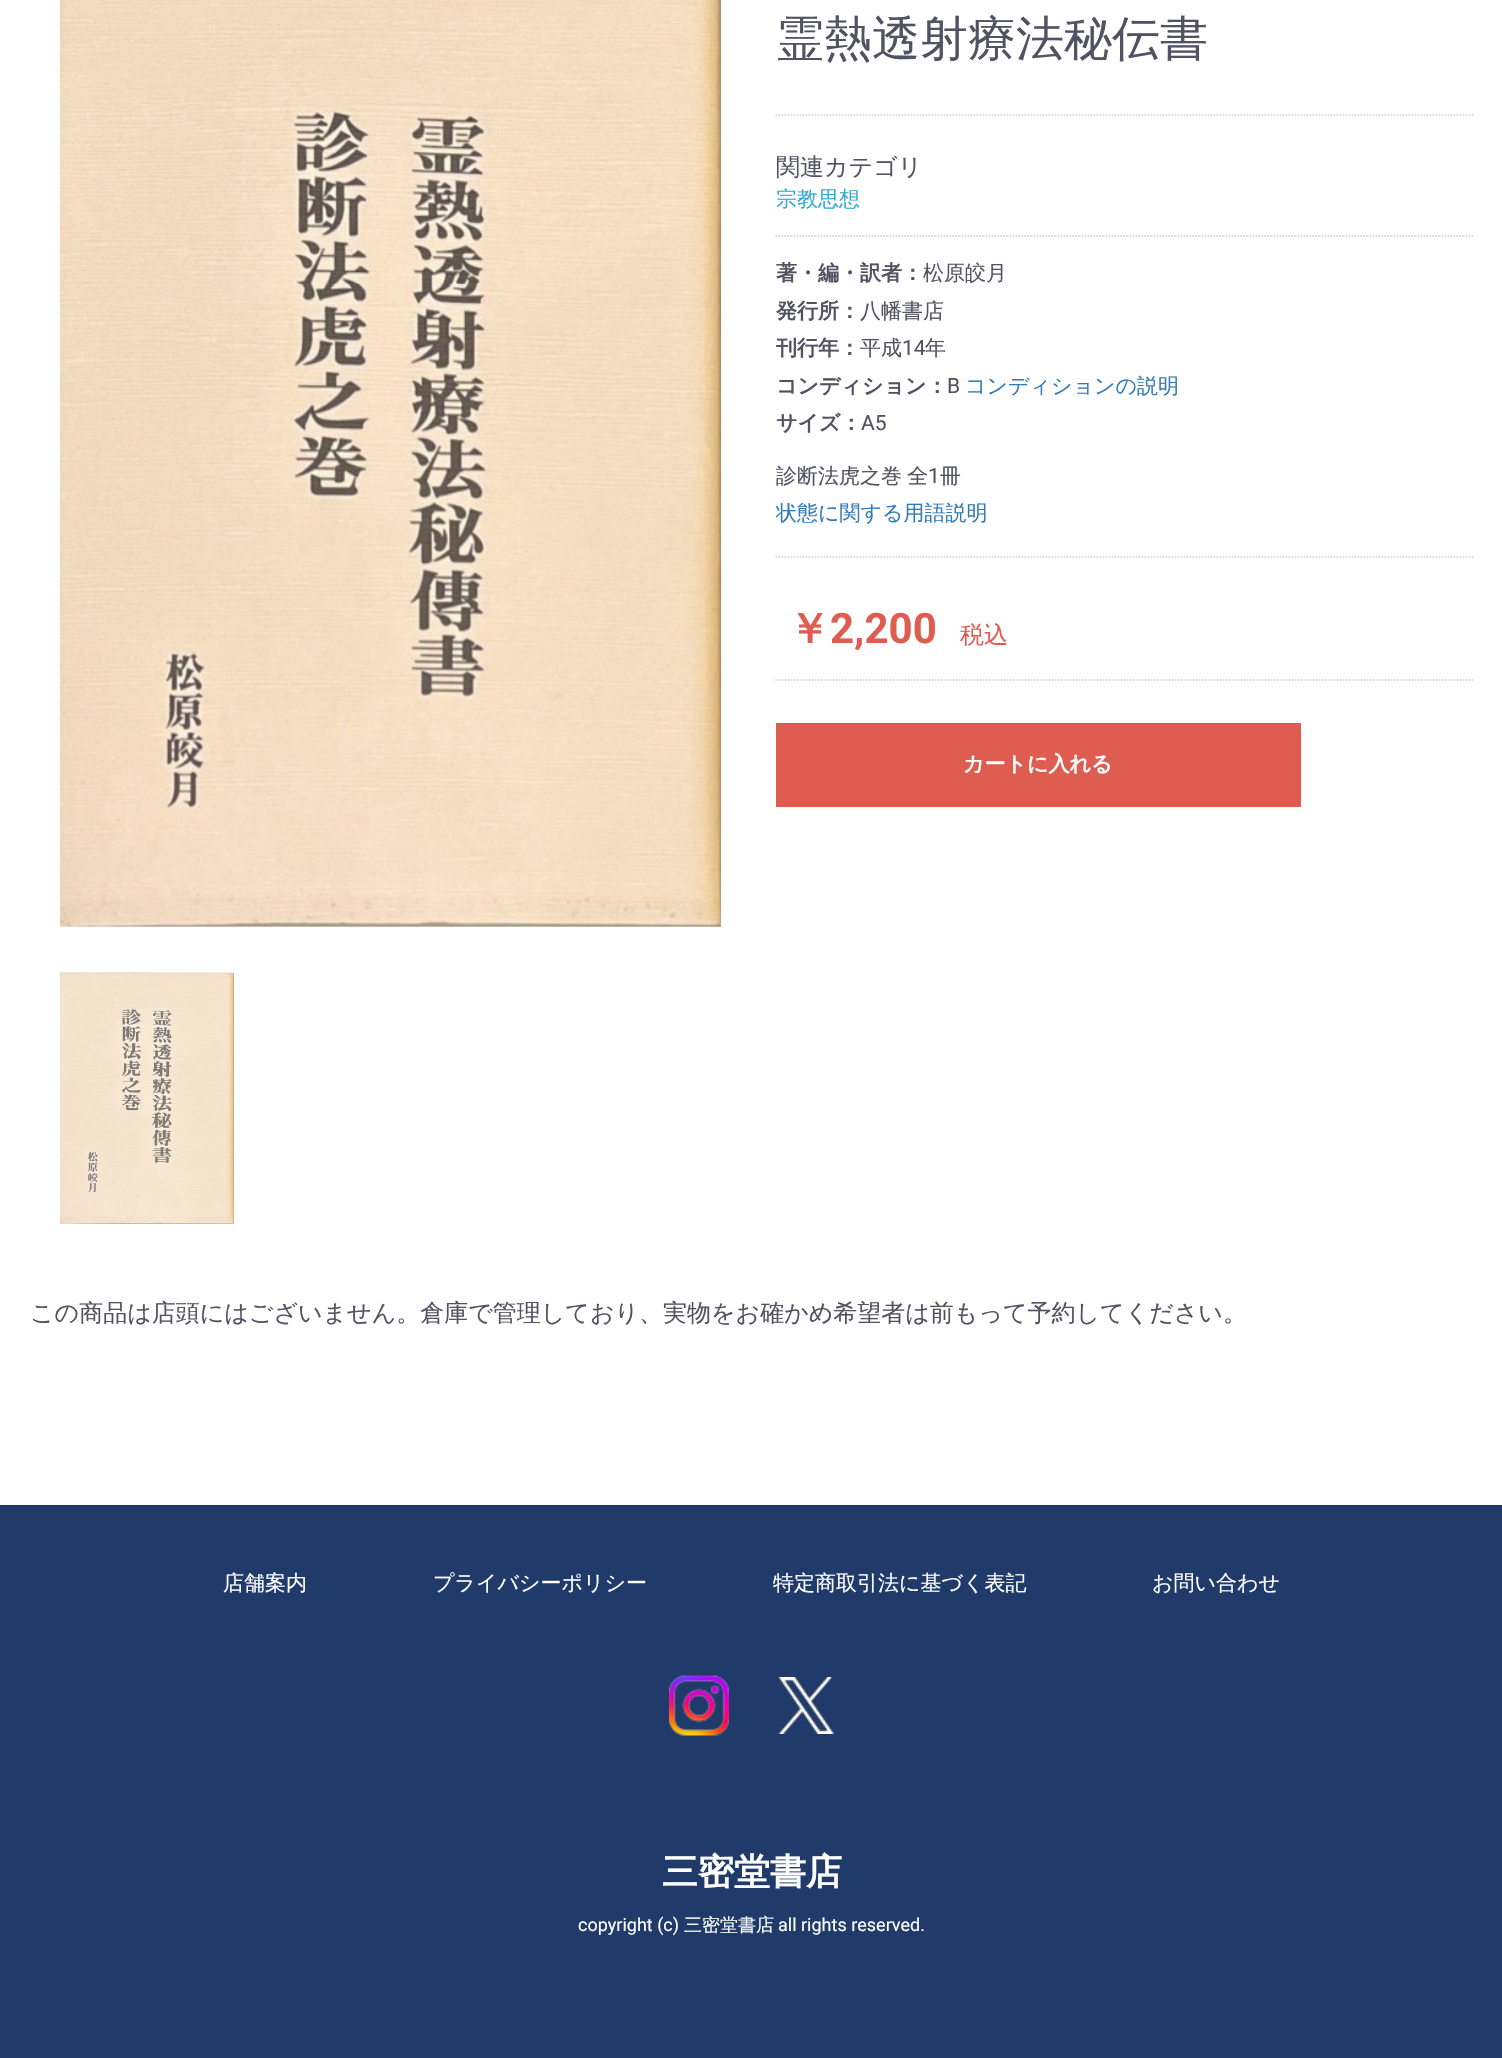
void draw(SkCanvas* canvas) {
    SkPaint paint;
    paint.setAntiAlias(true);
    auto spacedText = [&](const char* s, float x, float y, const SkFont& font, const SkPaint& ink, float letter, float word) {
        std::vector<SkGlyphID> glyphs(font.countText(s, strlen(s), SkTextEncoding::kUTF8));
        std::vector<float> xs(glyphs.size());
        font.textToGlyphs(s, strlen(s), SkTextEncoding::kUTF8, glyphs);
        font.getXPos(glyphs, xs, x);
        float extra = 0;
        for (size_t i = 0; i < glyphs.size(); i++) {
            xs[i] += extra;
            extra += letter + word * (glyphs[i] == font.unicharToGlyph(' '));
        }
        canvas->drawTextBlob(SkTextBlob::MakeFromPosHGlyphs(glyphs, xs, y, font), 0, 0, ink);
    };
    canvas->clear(0xFFFFFFFF);
    canvas->drawImageRect(SkImages::DeferredFromEncodedData(SkData::MakeFromFileName("img1.png")), SkRect::MakeXYWH(60, 0, 661, 927), SkSamplingOptions());
    canvas->drawImageRect(SkImages::DeferredFromEncodedData(SkData::MakeFromFileName("img2.png")), SkRect::MakeXYWH(60, 972, 174, 252), SkSamplingOptions());
    SkFont font1(fontMgr->matchFamilyStyle("WenQuanYi Zen Hei", SkFontStyle(500, SkFontStyle::kNormal_Width, SkFontStyle::kUpright_Slant)), 48);
    font1.setSubpixel(true);
    paint.setColor(0xFF525263);
    canvas->drawString("霊熱透射療法秘伝書", 776, 55, font1, paint);
    paint.setStyle(SkPaint::kStroke_Style);
    paint.setStrokeWidth(1.5f);
    paint.setColor(0xFFCCCCCC);
    paint.setPathEffect(SkDashPathEffect::Make({{1.5f, 1.5f}}, 0));
    canvas->drawPath(SkPathBuilder().moveTo(775.5f, 115).lineTo(1473, 115).detach(), paint);
    paint.setPathEffect(nullptr);
    paint.setPathEffect(SkDashPathEffect::Make({{1.5f, 1.5f}}, 0));
    canvas->drawPath(SkPathBuilder().moveTo(775.5f, 236).lineTo(1473, 236).detach(), paint);
    paint.setPathEffect(nullptr);
    SkFont font2(fontMgr->matchFamilyStyle("WenQuanYi Zen Hei", SkFontStyle(500, SkFontStyle::kNormal_Width, SkFontStyle::kUpright_Slant)), 24);
    font2.setSubpixel(true);
    paint.setStyle(SkPaint::kFill_Style);
    paint.setColor(0xFF525263);
    canvas->drawString("関連カテゴリ", 776, 175, font2, paint);
    SkFont font3(fontMgr->matchFamilyStyle("WenQuanYi Zen Hei", SkFontStyle(500, SkFontStyle::kNormal_Width, SkFontStyle::kUpright_Slant)), 21);
    font3.setSubpixel(true);
    paint.setColor(0xFF33A8D0);
    canvas->drawString("宗教思想", 776, 206, font3, paint);
    paint.setStyle(SkPaint::kStroke_Style);
    paint.setColor(0xFFCCCCCC);
    paint.setPathEffect(SkDashPathEffect::Make({{1.5f, 1.5f}}, 0));
    canvas->drawPath(SkPathBuilder().moveTo(775.5f, 557).lineTo(1473, 557).detach(), paint);
    paint.setPathEffect(nullptr);
    SkFont font4(fontMgr->matchFamilyStyle("WenQuanYi Zen Hei", SkFontStyle::Bold()), 21);
    font4.setSubpixel(true);
    paint.setStyle(SkPaint::kFill_Style);
    paint.setColor(0xFF525263);
    canvas->drawString("著・編・訳者：", 776, 280, font4, paint);
    canvas->drawString("松原皎月", 923, 280, font3, paint);
    canvas->drawString("発行所：", 776, 318, font4, paint);
    canvas->drawString("八幡書店", 860, 318, font3, paint);
    canvas->drawString("刊行年：", 776, 355, font4, paint);
    canvas->drawString("平成", 860, 355, font3, paint);
    SkFont font5(fontMgr->matchFamilyStyle("Roboto", SkFontStyle::Normal()), 21);
    font5.setSubpixel(true);
    canvas->drawString("14", 902, 355, font5, paint);
    canvas->drawString("年", 925, 355, font3, paint);
    canvas->drawString("コンディション：", 776, 393, font4, paint);
    canvas->drawString("B", 947, 393, font5, paint);
    paint.setColor(0xFF337AB7);
    canvas->drawString("コンディションの説明", 965, 393, font3, paint);
    paint.setColor(0xFF525263);
    canvas->drawString("サイズ：", 776, 430, font4, paint);
    canvas->drawString("A5", 861, 430, font5, paint);
    spacedText("診断法虎之巻 全", 776, 483, font3, paint, 0, -1);
    canvas->drawString("1", 928, 483, font5, paint);
    canvas->drawString("冊", 940, 483, font3, paint);
    paint.setColor(0xFF337AB7);
    canvas->drawString("状態に関する用語説明", 776, 520, font3, paint);
    paint.setStyle(SkPaint::kStroke_Style);
    paint.setColor(0xFFCCCCCC);
    paint.setPathEffect(SkDashPathEffect::Make({{1.5f, 1.5f}}, 0));
    canvas->drawPath(SkPathBuilder().moveTo(775.5f, 680).lineTo(1473, 680).detach(), paint);
    paint.setPathEffect(nullptr);
    SkFont font6(fontMgr->matchFamilyStyle("WenQuanYi Zen Hei", SkFontStyle::Bold()), 42);
    font6.setSubpixel(true);
    paint.setStyle(SkPaint::kFill_Style);
    paint.setColor(0xFFDE5D50);
    canvas->drawString("￥", 788, 643, font6, paint);
    SkFont font7(fontMgr->matchFamilyStyle("Roboto", SkFontStyle::Bold()), 42);
    font7.setSubpixel(true);
    canvas->drawString("2,200", 830, 643, font7, paint);
    canvas->drawString("税込", 960, 643, font2, paint);
    canvas->drawRect(SkRect::MakeXYWH(776, 723, 525, 84), paint);
    paint.setColor(0xFFFFFFFF);
    canvas->drawString("カートに入れる", 963, 771, font4, paint);
    paint.setColor(0xFF525263);
    canvas->drawString("この商品は店頭にはございません。倉庫で管理しており、実物をお確かめ希望者は前もって予約してください。", 30, 1321, font2, paint);
    paint.setColor(0xFF203B6A);
    canvas->drawRect(SkRect::MakeXYWH(0, 1505, 1502, 553), paint);
    paint.setColor(0xFFFFFFFF);
    canvas->drawString("店舗案内", 223, 1590, font3, paint);
    canvas->drawString("プライバシーポリシー", 433, 1590, font3, paint);
    canvas->drawString("特定商取引法に基づく表記", 773, 1590, font3, paint);
    canvas->drawString("お問い合わせ", 1152, 1590, font3, paint);
    canvas->drawImageRect(SkImages::DeferredFromEncodedData(SkData::MakeFromFileName("img3.png")), SkRect::MakeXYWH(669, 1675, 60, 61), SkSamplingOptions());
    canvas->drawImageRect(SkImages::DeferredFromEncodedData(SkData::MakeFromFileName("img4.png")), SkRect::MakeXYWH(778, 1677, 56, 57), SkSamplingOptions());
    SkFont font8(fontMgr->matchFamilyStyle("WenQuanYi Zen Hei", SkFontStyle::Bold()), 36);
    font8.setSubpixel(true);
    canvas->drawString("三密堂書店", 662, 1884, font8, paint);
    SkFont font9(fontMgr->matchFamilyStyle("Roboto", SkFontStyle::Normal()), 18);
    font9.setSubpixel(true);
    canvas->drawString("copyright (c)", 578, 1931, font9, paint);
    SkFont font10(fontMgr->matchFamilyStyle("WenQuanYi Zen Hei", SkFontStyle(500, SkFontStyle::kNormal_Width, SkFontStyle::kUpright_Slant)), 18);
    font10.setSubpixel(true);
    canvas->drawString("三密堂書店", 684, 1931, font10, paint);
    canvas->drawString("all rights reserved.", 778, 1931, font9, paint);
}
